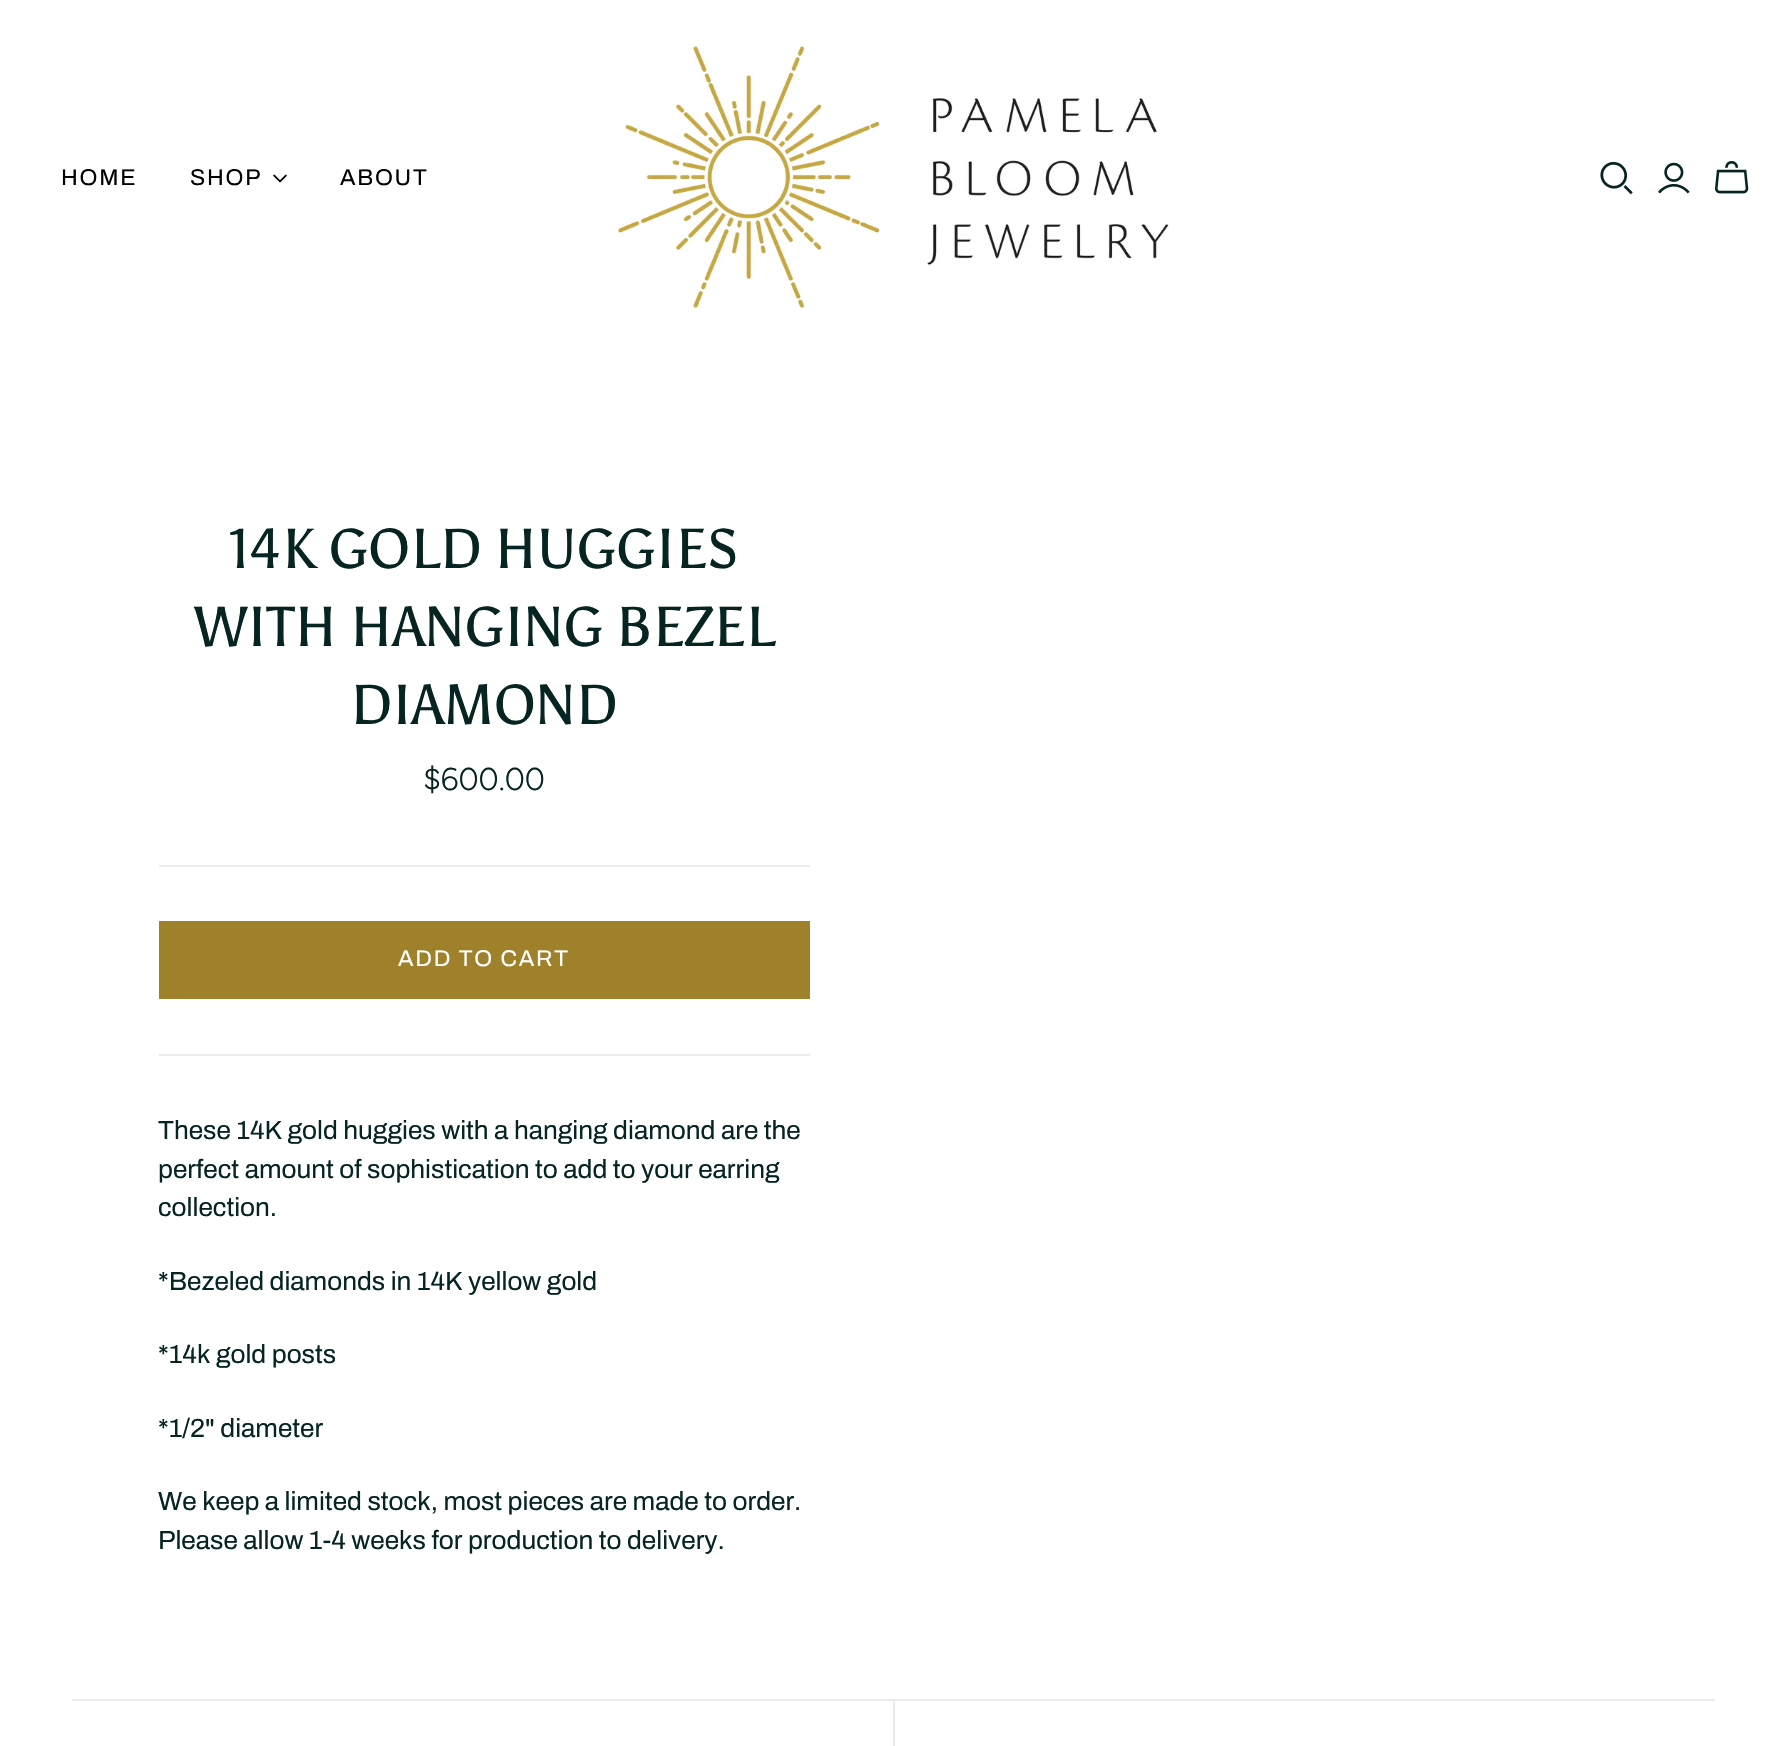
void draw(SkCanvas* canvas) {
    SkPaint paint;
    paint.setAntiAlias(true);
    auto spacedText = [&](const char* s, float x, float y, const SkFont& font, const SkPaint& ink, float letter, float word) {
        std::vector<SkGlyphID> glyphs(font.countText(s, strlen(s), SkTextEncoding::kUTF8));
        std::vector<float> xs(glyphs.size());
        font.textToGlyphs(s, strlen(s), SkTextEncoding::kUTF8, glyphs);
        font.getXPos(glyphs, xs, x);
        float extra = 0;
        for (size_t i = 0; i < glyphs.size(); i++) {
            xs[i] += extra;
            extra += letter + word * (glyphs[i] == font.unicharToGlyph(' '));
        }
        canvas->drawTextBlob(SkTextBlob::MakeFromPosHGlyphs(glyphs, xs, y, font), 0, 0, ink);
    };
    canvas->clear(0xFFFFFFFF);
    SkFont font1(fontMgr->matchFamilyStyle("Archivo", SkFontStyle::Normal()), 22.75f);
    font1.setSubpixel(true);
    paint.setColor(0xFF000000);
    spacedText("HOME", 61, 185, font1, paint, 1.75f, 0);
    spacedText("SHOP", 190, 185, font1, paint, 1.75f, 0);
    canvas->drawImageRect(SkImages::DeferredFromEncodedData(SkData::MakeFromFileName("img1.png")), SkRect::MakeXYWH(273, 174, 14, 9), SkSamplingOptions());
    spacedText("ABOUT", 340, 185, font1, paint, 1.75f, 0);
    canvas->drawImageRect(SkImages::DeferredFromEncodedData(SkData::MakeFromFileName("img2.png")), SkRect::MakeXYWH(618, 46, 551, 263), SkSamplingOptions());
    canvas->drawImageRect(SkImages::DeferredFromEncodedData(SkData::MakeFromFileName("img3.png")), SkRect::MakeXYWH(1600, 161, 33, 34), SkSamplingOptions());
    canvas->drawImageRect(SkImages::DeferredFromEncodedData(SkData::MakeFromFileName("img4.png")), SkRect::MakeXYWH(1658, 162, 32, 32), SkSamplingOptions());
    canvas->drawImageRect(SkImages::DeferredFromEncodedData(SkData::MakeFromFileName("img5.png")), SkRect::MakeXYWH(1715, 161, 34, 33), SkSamplingOptions());
    SkFont font2(fontMgr->matchFamilyStyle("Asul", SkFontStyle::Normal()), 56);
    font2.setSubpixel(true);
    paint.setColor(0xFF052422);
    canvas->drawString("14K GOLD HUGGIES", 229, 568, font2, paint);
    canvas->drawString("WITH HANGING BEZEL", 194, 646, font2, paint);
    canvas->drawString("DIAMOND", 350, 724, font2, paint);
    SkFont font3(fontMgr->matchFamilyStyle("Figtree", SkFontStyle(300, SkFontStyle::kNormal_Width, SkFontStyle::kUpright_Slant)), 31.5f);
    font3.setSubpixel(true);
    canvas->drawString("$600.00", 423, 790, font3, paint);
    paint.setColor(0xFFEBEBEB);
    canvas->drawRect(SkRect::MakeXYWH(159, 865, 651, 2), paint);
    paint.setColor(0xFF9F812B);
    canvas->drawRect(SkRect::MakeXYWH(159, 921, 651, 78), paint);
    paint.setColor(0xFFFFFFFF);
    spacedText("ADD TO CART", 398, 966, font1, paint, 1.75f, 0);
    paint.setColor(0xFFEBEBEB);
    canvas->drawRect(SkRect::MakeXYWH(159, 1054, 651, 2), paint);
    SkFont font4(fontMgr->matchFamilyStyle("Archivo", SkFontStyle::Normal()), 26.25f);
    font4.setSubpixel(true);
    paint.setColor(0xFF052422);
    canvas->drawString("These 14K gold huggies with a hanging diamond are the", 158, 1139, font4, paint);
    canvas->drawString("perfect amount of sophistication to add to your earring", 158, 1178, font4, paint);
    canvas->drawString("collection.", 158, 1216, font4, paint);
    canvas->drawString("*Bezeled diamonds in 14K yellow gold", 158, 1290, font4, paint);
    canvas->drawString("*14k gold posts", 158, 1363, font4, paint);
    canvas->drawString("*1/2\" diameter", 158, 1437, font4, paint);
    canvas->drawString("We keep a limited stock, most pieces are made to order.", 158, 1510, font4, paint);
    canvas->drawString("Please allow 1-4 weeks for production to delivery.", 158, 1549, font4, paint);
    paint.setColor(0xFFEBEBEB);
    canvas->drawRect(SkRect::MakeXYWH(72, 1699, 1643, 2), paint);
    canvas->drawRect(SkRect::MakeXYWH(893, 1701, 2, 45), paint);
}
